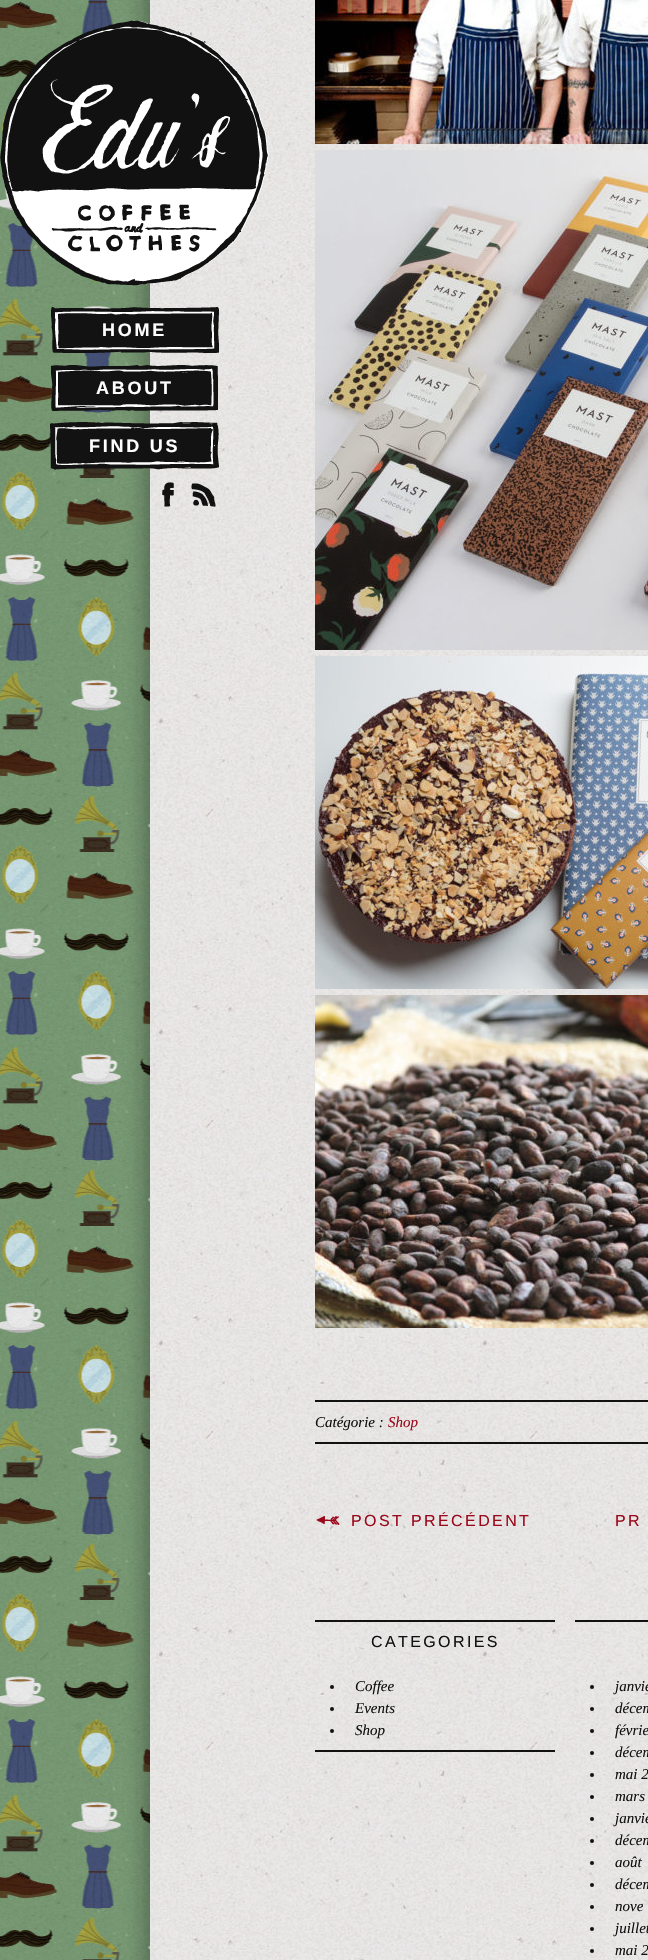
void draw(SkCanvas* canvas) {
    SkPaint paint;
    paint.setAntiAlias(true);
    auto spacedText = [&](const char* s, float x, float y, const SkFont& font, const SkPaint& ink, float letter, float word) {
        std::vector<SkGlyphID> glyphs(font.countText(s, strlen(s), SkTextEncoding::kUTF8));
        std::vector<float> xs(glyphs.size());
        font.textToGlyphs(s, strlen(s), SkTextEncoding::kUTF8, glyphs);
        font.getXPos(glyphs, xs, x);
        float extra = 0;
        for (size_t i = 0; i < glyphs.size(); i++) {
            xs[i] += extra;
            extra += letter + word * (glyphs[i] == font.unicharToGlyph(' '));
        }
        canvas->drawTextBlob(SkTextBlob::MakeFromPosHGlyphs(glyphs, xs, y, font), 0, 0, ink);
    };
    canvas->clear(0xFFFFFFFF);
    canvas->drawImageRect(SkImages::DeferredFromEncodedData(SkData::MakeFromFileName("img1.png")), SkRect::MakeXYWH(0, 0, 150, 1960), SkSamplingOptions());
    paint.setColor(0x730A0A0A);
    paint.setMaskFilter(SkMaskFilter::MakeBlur(kNormal_SkBlurStyle, 12.5f));
    canvas->drawRect(SkRect::MakeXYWH(150, -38, 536, 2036), paint);
    paint.setMaskFilter(nullptr);
    canvas->drawImageRect(SkImages::DeferredFromEncodedData(SkData::MakeFromFileName("img8.png")), SkRect::MakeXYWH(150, 0, 498, 1960), SkSamplingOptions());
    canvas->drawImageRect(SkImages::DeferredFromEncodedData(SkData::MakeFromFileName("img2.png")), SkRect::MakeXYWH(0, 20, 269, 266), SkSamplingOptions());
    canvas->drawImageRect(SkImages::DeferredFromEncodedData(SkData::MakeFromFileName("img3.png")), SkRect::MakeXYWH(51, 307, 168, 46), SkSamplingOptions());
    SkFont font1(fontMgr->matchFamilyStyle("Liberation Sans", SkFontStyle::Bold()), 18);
    font1.setSubpixel(true);
    paint.setColor(0xFFFFFFFF);
    spacedText("HOME", 102, 336, font1, paint, 2.75f, 0);
    canvas->drawImageRect(SkImages::DeferredFromEncodedData(SkData::MakeFromFileName("img4.png")), SkRect::MakeXYWH(51, 365, 167, 46), SkSamplingOptions());
    spacedText("ABOUT", 96, 394, font1, paint, 2.75f, 0);
    canvas->drawImageRect(SkImages::DeferredFromEncodedData(SkData::MakeFromFileName("img5.png")), SkRect::MakeXYWH(50, 422, 169, 48), SkSamplingOptions());
    spacedText("FIND US", 89, 452, font1, paint, 2.75f, 0);
    canvas->drawImageRect(SkImages::DeferredFromEncodedData(SkData::MakeFromFileName("img6.png")), SkRect::MakeXYWH(162, 482, 12, 25), SkSamplingOptions());
    canvas->drawImageRect(SkImages::DeferredFromEncodedData(SkData::MakeFromFileName("img7.png")), SkRect::MakeXYWH(191, 483, 25, 24), SkSamplingOptions());
    paint.setColor(0xFF111111);
    canvas->drawRect(SkRect::MakeXYWH(315, 1442, 333, 2), paint);
    canvas->drawImageRect(SkImages::DeferredFromEncodedData(SkData::MakeFromFileName("img9.png")), SkRect::MakeXYWH(315, 0, 333, 144), SkSamplingOptions());
    canvas->drawImageRect(SkImages::DeferredFromEncodedData(SkData::MakeFromFileName("img10.png")), SkRect::MakeXYWH(315, 150, 333, 500), SkSamplingOptions());
    canvas->drawImageRect(SkImages::DeferredFromEncodedData(SkData::MakeFromFileName("img11.png")), SkRect::MakeXYWH(315, 656, 333, 333), SkSamplingOptions());
    canvas->drawImageRect(SkImages::DeferredFromEncodedData(SkData::MakeFromFileName("img12.png")), SkRect::MakeXYWH(315, 995, 333, 333), SkSamplingOptions());
    canvas->drawRect(SkRect::MakeXYWH(315, 1400, 333, 2), paint);
    SkFont font2(fontMgr->matchFamilyStyle("Liberation Serif", SkFontStyle::Italic()), 15);
    font2.setSubpixel(true);
    canvas->drawString("Catégorie :", 315, 1427, font2, paint);
    paint.setColor(0xFF9C081B);
    canvas->drawString("Shop", 388, 1427, font2, paint);
    canvas->drawImageRect(SkImages::DeferredFromEncodedData(SkData::MakeFromFileName("img13.png")), SkRect::MakeXYWH(316, 1516, 24, 9), SkSamplingOptions());
    SkFont font3(fontMgr->matchFamilyStyle("Liberation Sans", SkFontStyle::Normal()), 16);
    font3.setSubpixel(true);
    spacedText("POST PRÉCÉDENT", 351, 1526, font3, paint, 2.4f, 0);
    spacedText("PR", 615, 1526, font3, paint, 2.4f, 0);
    paint.setColor(0xFF111111);
    canvas->drawRect(SkRect::MakeXYWH(315, 1620, 240, 2), paint);
    canvas->drawRect(SkRect::MakeXYWH(315, 1750, 240, 2), paint);
    spacedText("CATEGORIES", 371, 1647, font3, paint, 2.4f, 0);
    canvas->drawCircle(332, 1687, 2, paint);
    canvas->drawString("Coffee", 355, 1691, font2, paint);
    canvas->drawCircle(332, 1709, 2, paint);
    canvas->drawString("Events", 355, 1713, font2, paint);
    canvas->drawCircle(332, 1731, 2, paint);
    canvas->drawString("Shop", 355, 1735, font2, paint);
    canvas->drawRect(SkRect::MakeXYWH(575, 1620, 73, 2), paint);
    canvas->drawCircle(592, 1687, 2, paint);
    canvas->drawString("janvie", 615, 1691, font2, paint);
    canvas->drawCircle(592, 1709, 2, paint);
    canvas->drawString("décem", 615, 1713, font2, paint);
    canvas->drawCircle(592, 1731, 2, paint);
    canvas->drawString("févrie", 615, 1735, font2, paint);
    canvas->drawCircle(592, 1753, 2, paint);
    canvas->drawString("décem", 615, 1757, font2, paint);
    canvas->drawCircle(592, 1775, 2, paint);
    canvas->drawString("mai 2", 615, 1779, font2, paint);
    canvas->drawCircle(592, 1797, 2, paint);
    canvas->drawString("mars", 615, 1801, font2, paint);
    canvas->drawCircle(592, 1819, 2, paint);
    canvas->drawString("janvie", 615, 1823, font2, paint);
    canvas->drawCircle(592, 1841, 2, paint);
    canvas->drawString("décem", 615, 1845, font2, paint);
    canvas->drawCircle(592, 1863, 2, paint);
    canvas->drawString("août", 615, 1867, font2, paint);
    canvas->drawCircle(592, 1885, 2, paint);
    canvas->drawString("décem", 615, 1889, font2, paint);
    canvas->drawCircle(592, 1907, 2, paint);
    canvas->drawString("nove", 615, 1911, font2, paint);
    canvas->drawCircle(592, 1929, 2, paint);
    canvas->drawString("juillet", 615, 1933, font2, paint);
    canvas->drawCircle(592, 1951, 2, paint);
    canvas->drawString("mai 2", 615, 1955, font2, paint);
}
